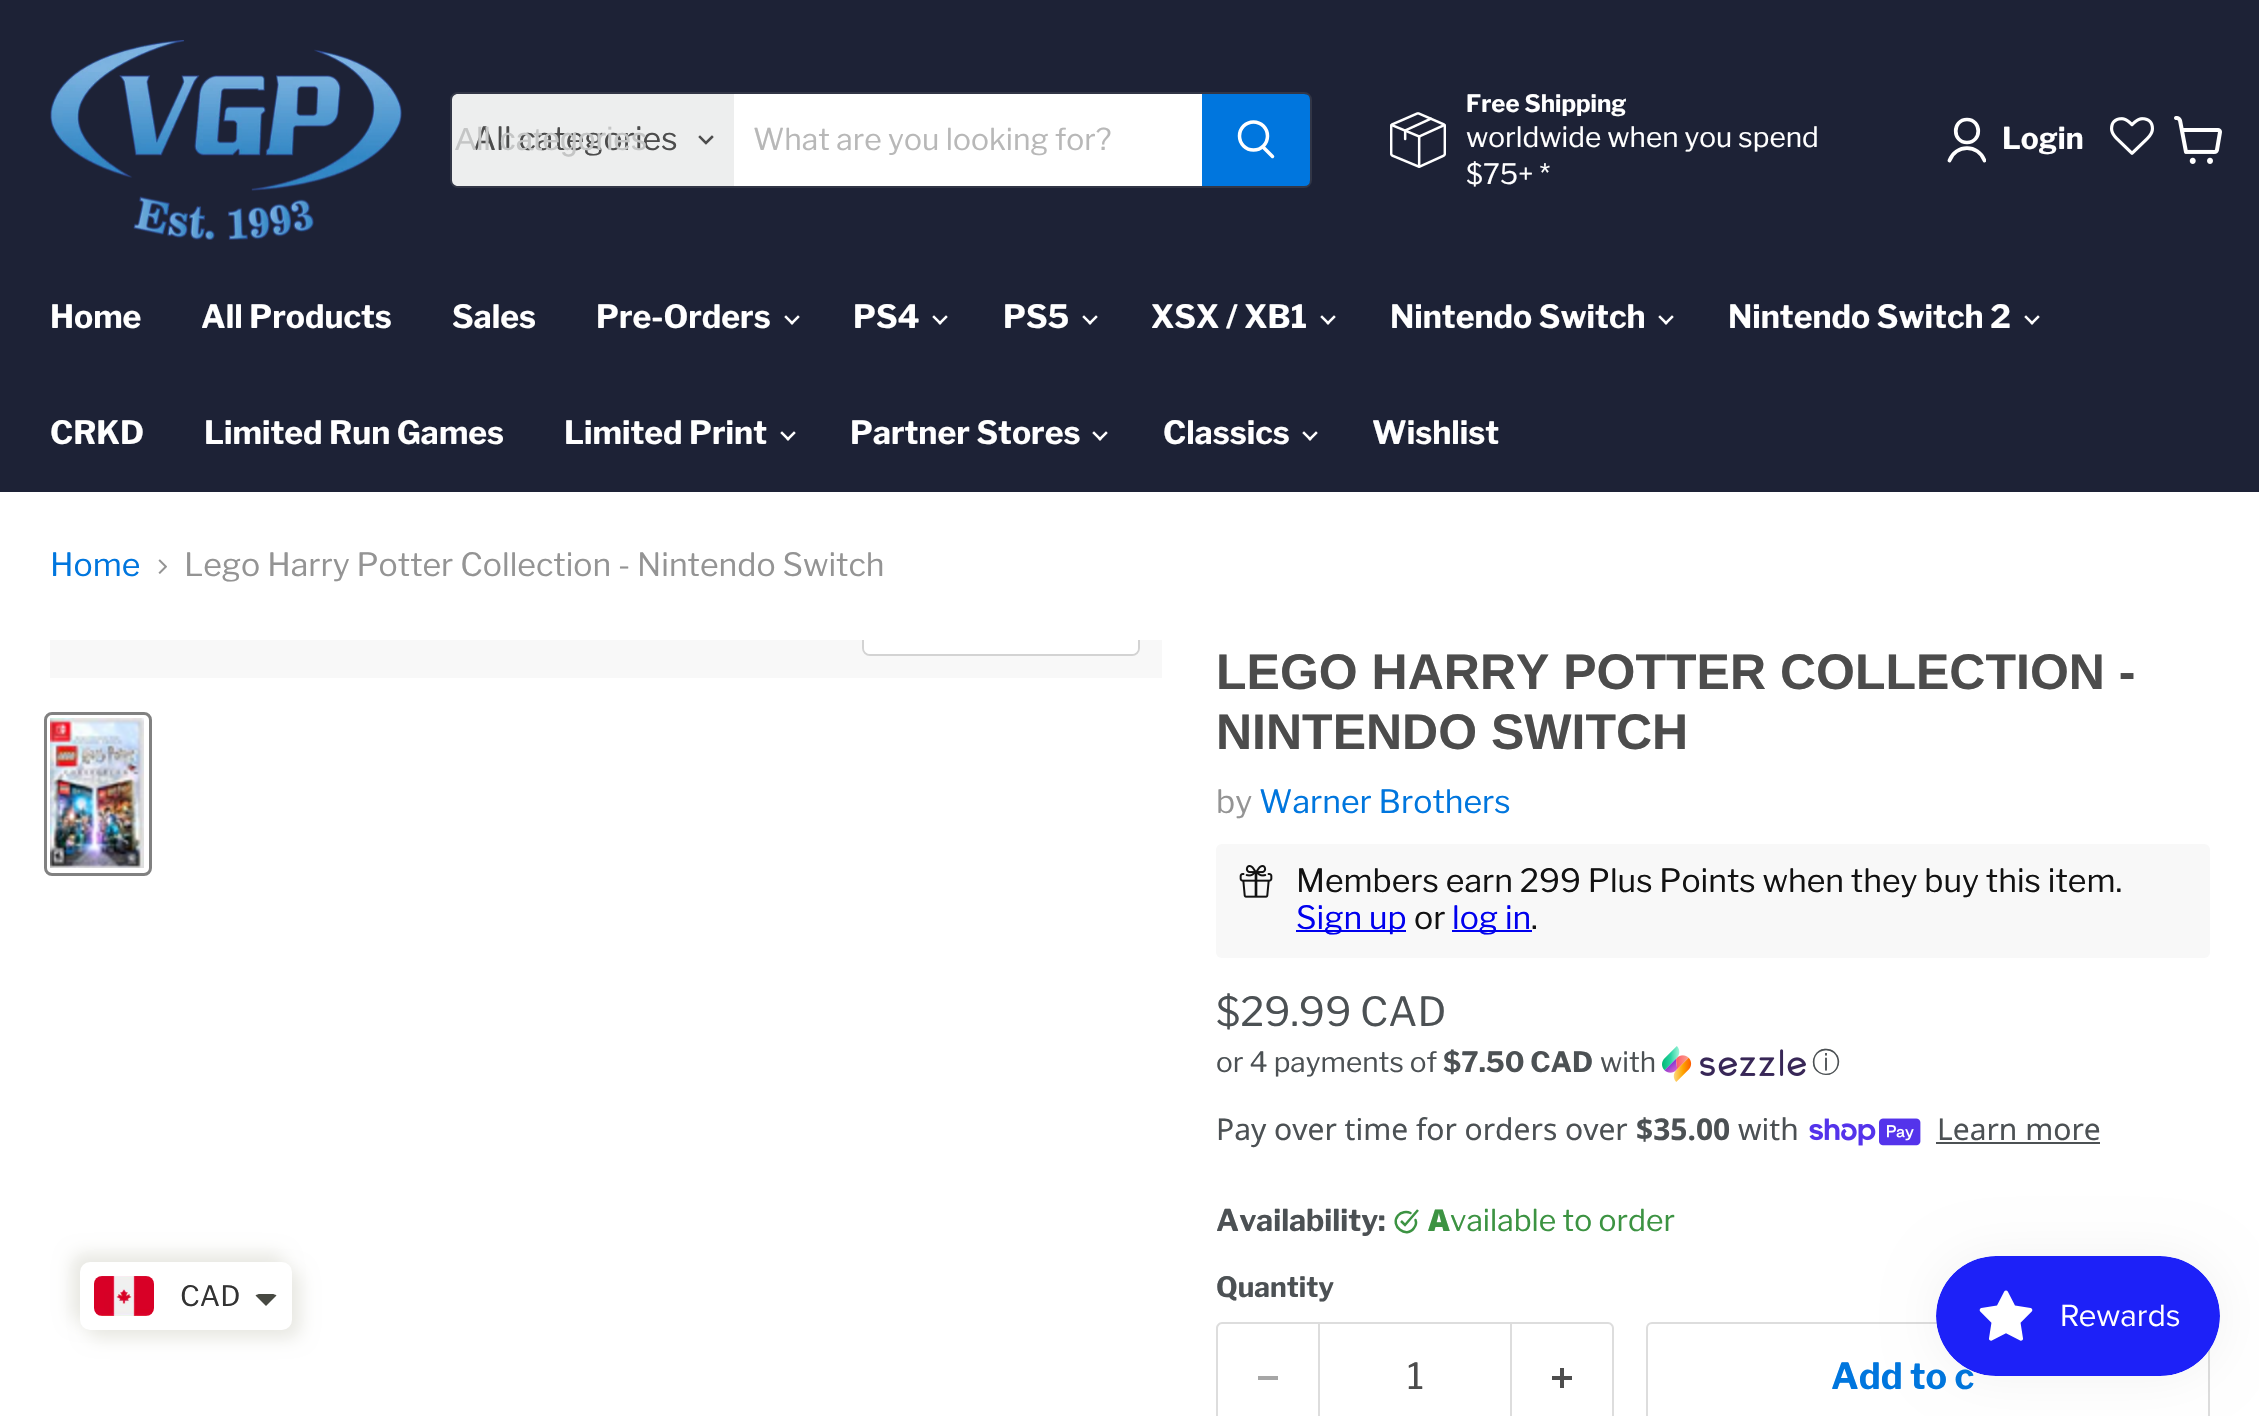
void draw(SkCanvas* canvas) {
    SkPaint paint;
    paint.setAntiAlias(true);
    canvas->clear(0xFFFFFFFF);
    paint.setColor(0xFF1D2236);
    canvas->drawRect(SkRect::MakeXYWH(0, 0, 2259, 492), paint);
    canvas->drawImageRect(SkImages::DeferredFromEncodedData(SkData::MakeFromFileName("img1.png")), SkRect::MakeXYWH(50, 40, 352, 200), SkSamplingOptions());
    paint.setStyle(SkPaint::kStroke_Style);
    paint.setStrokeWidth(2);
    paint.setColor(0x33808080);
    canvas->drawRoundRect(SkRect::MakeXYWH(451, 93, 860, 94), 7, 7, paint);
    paint.setStyle(SkPaint::kFill_Style);
    paint.setColor(0xFFEDEEEE);
    canvas->drawPath(SkPathBuilder().moveTo(458, 94).lineTo(734, 94).lineTo(734, 186).lineTo(458, 186).cubicTo(454.5f, 186, 452, 183.5f, 452, 180).lineTo(452, 100).cubicTo(452, 96.5f, 454.5f, 94, 458, 94).close().detach(), paint);
    SkFont font1(fontMgr->matchFamilyStyle("Libre Franklin", SkFontStyle::Normal()), 32);
    font1.setSubpixel(true);
    paint.setColor(0xFF4C4C4C);
    canvas->drawString("All categories", 473, 150, font1, paint);
    SkFont font2(fontMgr->matchFamilyStyle("Liberation Sans", SkFontStyle::Normal()), 32);
    font2.setSubpixel(true);
    paint.setColor(0xFFC4C5C5);
    canvas->drawString("All categories", 455, 150, font2, paint);
    paint.setStyle(SkPaint::kStroke_Style);
    paint.setStrokeWidth(2.5f);
    paint.setStrokeCap(SkPaint::kSquare_Cap);
    paint.setColor(0xFF4D4D4D);
    canvas->drawPath(SkPathBuilder().moveTo(706, 143).lineTo(712, 137).moveTo(706, 143).lineTo(700, 137).detach(), paint);
    paint.setStyle(SkPaint::kFill_Style);
    paint.setColor(0xFFFFFFFF);
    canvas->drawRect(SkRect::MakeXYWH(734, 94, 468, 92), paint);
    SkFont font3(fontMgr->matchFamilyStyle("Libre Franklin", SkFontStyle::Normal()), 30);
    font3.setSubpixel(true);
    paint.setColor(0xFFB8B8B8);
    canvas->drawString("What are you looking for?", 753, 150, font3, paint);
    paint.setColor(0xFF0076DE);
    canvas->drawPath(SkPathBuilder().moveTo(1203, 95).lineTo(1304, 95).cubicTo(1307, 95, 1309, 97, 1309, 100).lineTo(1309, 180).cubicTo(1309, 183, 1307, 185, 1304, 185).lineTo(1203, 185).close().detach(), paint);
    paint.setStyle(SkPaint::kStroke_Style);
    paint.setStrokeWidth(2);
    paint.setStrokeCap(SkPaint::kButt_Cap);
    canvas->drawPath(SkPathBuilder().moveTo(1203, 95).lineTo(1304, 95).cubicTo(1307, 95, 1309, 97, 1309, 100).lineTo(1309, 180).cubicTo(1309, 183, 1307, 185, 1304, 185).lineTo(1203, 185).close().detach(), paint);
    paint.setStrokeWidth(3.5f);
    paint.setStrokeCap(SkPaint::kRound_Cap);
    paint.setColor(0xFFFFFFFF);
    canvas->drawPath(SkPathBuilder().moveTo(1272.5f, 156.5f).lineTo(1263, 147).detach(), paint);
    paint.setStrokeCap(SkPaint::kButt_Cap);
    canvas->drawCircle(1253.5f, 136, 14, paint);
    canvas->drawImageRect(SkImages::DeferredFromEncodedData(SkData::MakeFromFileName("img2.png")), SkRect::MakeXYWH(1390, 112, 56, 56), SkSamplingOptions());
    SkFont font4(fontMgr->matchFamilyStyle("Libre Franklin", SkFontStyle::Bold()), 24);
    font4.setSubpixel(true);
    paint.setStyle(SkPaint::kFill_Style);
    canvas->drawString("Free Shipping", 1466, 112, font4, paint);
    SkFont font5(fontMgr->matchFamilyStyle("Libre Franklin", SkFontStyle::Normal()), 28);
    font5.setSubpixel(true);
    canvas->drawString("worldwide when you spend", 1466, 147, font5, paint);
    canvas->drawString("$75+ *", 1466, 184, font5, paint);
    paint.setStyle(SkPaint::kStroke_Style);
    paint.setStrokeWidth(3.7f);
    paint.setStrokeCap(SkPaint::kRound_Cap);
    paint.setStrokeJoin(SkPaint::kRound_Join);
    canvas->drawPath(SkPathBuilder().moveTo(1967, 142.5f).cubicTo(1982, 142.5f, 1982, 119.5f, 1967, 119.5f).cubicTo(1952, 119.5f, 1952, 142.5f, 1967, 142.5f).close().detach(), paint);
    canvas->save();
    canvas->clipRect(SkRect::MakeXYWH(1946, 116, 40, 48));
    canvas->drawPath(SkPathBuilder().moveTo(1984.5f, 160.5f).cubicTo(1978.5f, 144, 1955.5f, 144, 1949.5f, 160.5f).detach(), paint);
    canvas->restore();
    SkFont font6(fontMgr->matchFamilyStyle("Libre Franklin", SkFontStyle::Bold()), 30);
    font6.setSubpixel(true);
    paint.setStyle(SkPaint::kFill_Style);
    canvas->drawString("Login", 2002, 149, font6, paint);
    canvas->drawImageRect(SkImages::DeferredFromEncodedData(SkData::MakeFromFileName("img3.png")), SkRect::MakeXYWH(2110, 117, 44, 38), SkSamplingOptions());
    canvas->drawImageRect(SkImages::DeferredFromEncodedData(SkData::MakeFromFileName("img4.png")), SkRect::MakeXYWH(2174, 116, 48, 48), SkSamplingOptions());
    SkFont font7(fontMgr->matchFamilyStyle("Libre Franklin", SkFontStyle::Bold()), 32);
    font7.setSubpixel(true);
    canvas->drawString("Home", 50, 328, font7, paint);
    canvas->drawString("All Products", 201, 328, font7, paint);
    canvas->drawString("Sales", 452, 328, font7, paint);
    canvas->drawString("Pre-Orders", 596, 328, font7, paint);
    canvas->drawImageRect(SkImages::DeferredFromEncodedData(SkData::MakeFromFileName("img5.png")), SkRect::MakeXYWH(784, 315, 16, 10), SkSamplingOptions());
    canvas->drawString("PS4", 853, 328, font7, paint);
    canvas->drawImageRect(SkImages::DeferredFromEncodedData(SkData::MakeFromFileName("img5.png")), SkRect::MakeXYWH(932, 315, 16, 10), SkSamplingOptions());
    canvas->drawString("PS5", 1003, 328, font7, paint);
    canvas->drawImageRect(SkImages::DeferredFromEncodedData(SkData::MakeFromFileName("img5.png")), SkRect::MakeXYWH(1082, 315, 16, 10), SkSamplingOptions());
    canvas->drawString("XSX / XB1", 1151, 328, font7, paint);
    canvas->drawImageRect(SkImages::DeferredFromEncodedData(SkData::MakeFromFileName("img5.png")), SkRect::MakeXYWH(1320, 315, 16, 10), SkSamplingOptions());
    canvas->drawString("Nintendo Switch", 1390, 328, font7, paint);
    canvas->drawImageRect(SkImages::DeferredFromEncodedData(SkData::MakeFromFileName("img5.png")), SkRect::MakeXYWH(1658, 315, 16, 10), SkSamplingOptions());
    canvas->drawString("Nintendo Switch 2", 1728, 328, font7, paint);
    canvas->drawImageRect(SkImages::DeferredFromEncodedData(SkData::MakeFromFileName("img5.png")), SkRect::MakeXYWH(2024, 315, 16, 10), SkSamplingOptions());
    canvas->drawString("CRKD", 50, 444, font7, paint);
    canvas->drawString("Limited Run Games", 204, 444, font7, paint);
    canvas->drawString("Limited Print", 564, 444, font7, paint);
    canvas->drawImageRect(SkImages::DeferredFromEncodedData(SkData::MakeFromFileName("img5.png")), SkRect::MakeXYWH(780, 431, 16, 10), SkSamplingOptions());
    canvas->drawString("Partner Stores", 850, 444, font7, paint);
    canvas->drawImageRect(SkImages::DeferredFromEncodedData(SkData::MakeFromFileName("img5.png")), SkRect::MakeXYWH(1092, 431, 16, 10), SkSamplingOptions());
    canvas->drawString("Classics", 1163, 444, font7, paint);
    canvas->drawImageRect(SkImages::DeferredFromEncodedData(SkData::MakeFromFileName("img5.png")), SkRect::MakeXYWH(1302, 431, 16, 10), SkSamplingOptions());
    canvas->drawString("Wishlist", 1372, 444, font7, paint);
    paint.setColor(0xFF0076DE);
    canvas->drawString("Home", 50, 576, font1, paint);
    canvas->drawImageRect(SkImages::DeferredFromEncodedData(SkData::MakeFromFileName("img6.png")), SkRect::MakeXYWH(158, 559, 9, 15), SkSamplingOptions());
    paint.setColor(0xFF949494);
    canvas->drawString("Lego Harry Potter Collection - Nintendo Switch", 184, 576, font1, paint);
    paint.setColor(0xFFF8F8F8);
    canvas->drawRect(SkRect::MakeXYWH(50, 640, 1112, 38), paint);
    canvas->save();
    canvas->clipRect(SkRect::MakeXYWH(50, 640, 1112, 38));
    paint.setStyle(SkPaint::kStroke_Style);
    paint.setStrokeWidth(2);
    paint.setStrokeCap(SkPaint::kButt_Cap);
    paint.setStrokeJoin(SkPaint::kMiter_Join);
    paint.setColor(0xFFD3D3D3);
    canvas->drawRoundRect(SkRect::MakeXYWH(863, 597, 276, 58), 7, 7, paint);
    canvas->restore();
    paint.setStyle(SkPaint::kFill_Style);
    paint.setColor(0xE6FFFFFF);
    canvas->drawPath(SkPathBuilder().moveTo(864, 640).lineTo(1138, 640).lineTo(1138, 648).cubicTo(1138, 651.5f, 1135.5f, 654, 1132, 654).lineTo(870, 654).cubicTo(866.5f, 654, 864, 651.5f, 864, 648).close().detach(), paint);
    paint.setStyle(SkPaint::kStroke_Style);
    paint.setStrokeWidth(3);
    paint.setColor(0xFF818181);
    canvas->drawRoundRect(SkRect::MakeXYWH(45.5f, 713.5f, 105, 161), 6.5f, 6.5f, paint);
    canvas->drawImageRect(SkImages::DeferredFromEncodedData(SkData::MakeFromFileName("img7.png")), SkRect::MakeXYWH(50, 718, 94, 150), SkSamplingOptions());
    SkFont font8(fontMgr->matchFamilyStyle("Arimo", SkFontStyle::Bold()), 50);
    font8.setSubpixel(true);
    paint.setStyle(SkPaint::kFill_Style);
    paint.setColor(0xFF4C4C4C);
    canvas->drawString("LEGO HARRY POTTER COLLECTION -", 1216, 689, font8, paint);
    canvas->drawString("NINTENDO SWITCH", 1216, 749, font8, paint);
    paint.setColor(0xFF949494);
    canvas->drawString("by", 1216, 813, font1, paint);
    paint.setColor(0xFF0076DE);
    canvas->drawString("Warner Brothers", 1259, 813, font1, paint);
    paint.setColor(0xFFF8F8F8);
    canvas->drawRoundRect(SkRect::MakeXYWH(1216, 844, 994, 114), 6, 6, paint);
    canvas->drawImageRect(SkImages::DeferredFromEncodedData(SkData::MakeFromFileName("img8.png")), SkRect::MakeXYWH(1239, 865, 34, 33), SkSamplingOptions());
    paint.setColor(0xFF121212);
    canvas->drawString("Members earn 299 Plus Points when they buy this item.", 1296, 892, font1, paint);
    paint.setColor(0xFF0000EE);
    canvas->drawRect(SkRect::MakeXYWH(1296, 930, 110, 2), paint);
    canvas->drawString("Sign up", 1296, 929, font1, paint);
    paint.setColor(0xFF121212);
    canvas->drawString("or", 1414, 929, font1, paint);
    paint.setColor(0xFF0000EE);
    canvas->drawRect(SkRect::MakeXYWH(1452, 930, 80, 2), paint);
    canvas->drawString("log in", 1452, 929, font1, paint);
    paint.setColor(0xFF121212);
    canvas->drawString(".", 1531, 929, font1, paint);
    SkFont font9(fontMgr->matchFamilyStyle("Libre Franklin", SkFontStyle::Normal()), 40);
    font9.setSubpixel(true);
    paint.setColor(0xFF4C5154);
    canvas->drawString("$29.99 CAD", 1216, 1026, font9, paint);
    canvas->drawString("or 4 payments of", 1216, 1072, font5, paint);
    SkFont font10(fontMgr->matchFamilyStyle("Libre Franklin", SkFontStyle::Bold()), 28);
    font10.setSubpixel(true);
    canvas->drawString("$7.50 CAD", 1443, 1072, font10, paint);
    canvas->drawString("with", 1600, 1072, font5, paint);
    canvas->drawImageRect(SkImages::DeferredFromEncodedData(SkData::MakeFromFileName("img9.png")), SkRect::MakeXYWH(1662, 1046, 144, 36), SkSamplingOptions());
    SkFont font11(fontMgr->matchFamilyStyle("WenQuanYi Zen Hei", SkFontStyle(500, SkFontStyle::kNormal_Width, SkFontStyle::kUpright_Slant)), 28);
    font11.setSubpixel(true);
    canvas->drawString("ⓘ", 1812, 1072, font11, paint);
    SkFont font12(fontMgr->matchFamilyStyle("Noto Sans", SkFontStyle::Normal()), 30);
    font12.setSubpixel(true);
    canvas->drawString("Pay over time for orders over", 1216, 1140, font12, paint);
    SkFont font13(fontMgr->matchFamilyStyle("Noto Sans", SkFontStyle::Bold()), 30);
    font13.setSubpixel(true);
    canvas->drawString("$35.00", 1636, 1140, font13, paint);
    canvas->drawString("with", 1738, 1140, font12, paint);
    canvas->drawImageRect(SkImages::DeferredFromEncodedData(SkData::MakeFromFileName("img10.png")), SkRect::MakeXYWH(1809, 1118, 112, 28), SkSamplingOptions());
    canvas->drawString("Learn more", 1937, 1140, font12, paint);
    canvas->drawRect(SkRect::MakeXYWH(1936, 1142, 164, 2), paint);
    canvas->drawString("Availability:", 1216, 1231, font6, paint);
    paint.setStyle(SkPaint::kStroke_Style);
    paint.setStrokeWidth(2.5f);
    paint.setColor(0xFF3C9342);
    canvas->drawPath(SkPathBuilder().moveTo(1401, 1221).lineTo(1405, 1225).lineTo(1418, 1210).detach(), paint);
    paint.setStrokeCap(SkPaint::kRound_Cap);
    paint.setStrokeJoin(SkPaint::kRound_Join);
    canvas->drawPath(SkPathBuilder().moveTo(1415.5f, 1220).cubicTo(1416.5f, 1222.5f, 1416, 1225.5f, 1414, 1228).cubicTo(1406.5f, 1239, 1389.5f, 1226, 1398, 1215.5f).cubicTo(1401, 1212, 1406.5f, 1211, 1410.5f, 1213).detach(), paint);
    SkFont font14(fontMgr->matchFamilyStyle("Noto Sans", SkFontStyle(900, SkFontStyle::kNormal_Width, SkFontStyle::kUpright_Slant)), 30);
    font14.setSubpixel(true);
    paint.setStyle(SkPaint::kFill_Style);
    canvas->drawString("A", 1428, 1231, font14, paint);
    canvas->drawString("vailable to order", 1450, 1231, font3, paint);
    paint.setColor(0xFF4C5154);
    canvas->drawString("Quantity", 1216, 1297, font10, paint);
    paint.setColor(0xFFDDDDDD);
    canvas->drawPath(SkPathBuilder(SkPathFillType::kEvenOdd).moveTo(1222, 1322).lineTo(1318, 1322).lineTo(1318, 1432).lineTo(1222, 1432).cubicTo(1219, 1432, 1216, 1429, 1216, 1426).lineTo(1216, 1328).cubicTo(1216, 1325, 1219, 1322, 1222, 1322).close().moveTo(1222, 1324).lineTo(1318, 1324).lineTo(1318, 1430).lineTo(1222, 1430).cubicTo(1220, 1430, 1218, 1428, 1218, 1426).lineTo(1218, 1328).cubicTo(1218, 1326, 1220, 1324, 1222, 1324).close().detach(), paint);
    paint.setColor(0xFFA6A6A6);
    canvas->drawRect(SkRect::MakeXYWH(1258, 1376, 20, 4), paint);
    paint.setStyle(SkPaint::kStroke_Style);
    paint.setStrokeWidth(2);
    paint.setStrokeCap(SkPaint::kButt_Cap);
    paint.setStrokeJoin(SkPaint::kMiter_Join);
    paint.setColor(0xFFDDDDDD);
    canvas->drawRect(SkRect::MakeXYWH(1319, 1323, 192, 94), paint);
    SkFont font15(fontMgr->matchFamilyStyle("Libre Franklin", SkFontStyle::Normal()), 36);
    font15.setSubpixel(true);
    paint.setStyle(SkPaint::kFill_Style);
    paint.setColor(0xFF4C4C4C);
    canvas->drawString("1", 1407, 1389, font15, paint);
    paint.setColor(0xFFDDDDDD);
    canvas->drawPath(SkPathBuilder(SkPathFillType::kEvenOdd).moveTo(1512, 1322).lineTo(1608, 1322).cubicTo(1611, 1322, 1614, 1325, 1614, 1328).lineTo(1614, 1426).cubicTo(1614, 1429, 1611, 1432, 1608, 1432).lineTo(1512, 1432).close().moveTo(1512, 1324).lineTo(1608, 1324).cubicTo(1610, 1324, 1612, 1326, 1612, 1328).lineTo(1612, 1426).cubicTo(1612, 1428, 1610, 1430, 1608, 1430).lineTo(1512, 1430).close().detach(), paint);
    canvas->drawImageRect(SkImages::DeferredFromEncodedData(SkData::MakeFromFileName("img11.png")), SkRect::MakeXYWH(1552, 1368, 20, 20), SkSamplingOptions());
    paint.setStyle(SkPaint::kStroke_Style);
    canvas->drawRoundRect(SkRect::MakeXYWH(1647, 1323, 562, 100), 5, 5, paint);
    SkFont font16(fontMgr->matchFamilyStyle("Libre Franklin", SkFontStyle::Bold()), 36);
    font16.setSubpixel(true);
    paint.setStyle(SkPaint::kFill_Style);
    paint.setColor(0xFF0076DE);
    canvas->drawString("Add to c", 1831, 1389, font16, paint);
    paint.setColor(0xFFE8E8E2);
    paint.setMaskFilter(SkMaskFilter::MakeBlur(kNormal_SkBlurStyle, 9));
    canvas->drawRoundRect(SkRect::MakeXYWH(72, 1254, 212, 68), 10, 10, paint);
    paint.setMaskFilter(nullptr);
    paint.setMaskFilter(SkMaskFilter::MakeBlur(kNormal_SkBlurStyle, 9));
    canvas->drawRoundRect(SkRect::MakeXYWH(88, 1270, 212, 68), 10, 10, paint);
    paint.setMaskFilter(nullptr);
    paint.setColor(0xFFFFFFFF);
    canvas->drawRoundRect(SkRect::MakeXYWH(80, 1262, 212, 68), 10, 10, paint);
    canvas->drawImageRect(SkImages::DeferredFromEncodedData(SkData::MakeFromFileName("img12.png")), SkRect::MakeXYWH(94, 1276, 60, 40), SkSamplingOptions());
    paint.setColor(0xFF333333);
    canvas->drawString("CAD", 180, 1306, font5, paint);
    paint.setColor(0xFF474942);
    canvas->drawPath(SkPathBuilder().moveTo(260, 1294).cubicTo(258, 1294, 257, 1294.5f, 255.5f, 1295.5f).lineTo(266, 1306).lineTo(276.5f, 1295.5f).cubicTo(275, 1294.5f, 274, 1294, 272, 1294).close().detach(), paint);
    paint.setColor(0x0D000000);
    paint.setMaskFilter(SkMaskFilter::MakeBlur(kNormal_SkBlurStyle, 25));
    canvas->drawRoundRect(SkRect::MakeXYWH(1936, 1256, 284, 120), 60, 60, paint);
    paint.setMaskFilter(nullptr);
    canvas->drawImageRect(SkImages::DeferredFromEncodedData(SkData::MakeFromFileName("img13.png")), SkRect::MakeXYWH(1936, 1256, 284, 120), SkSamplingOptions());
}
